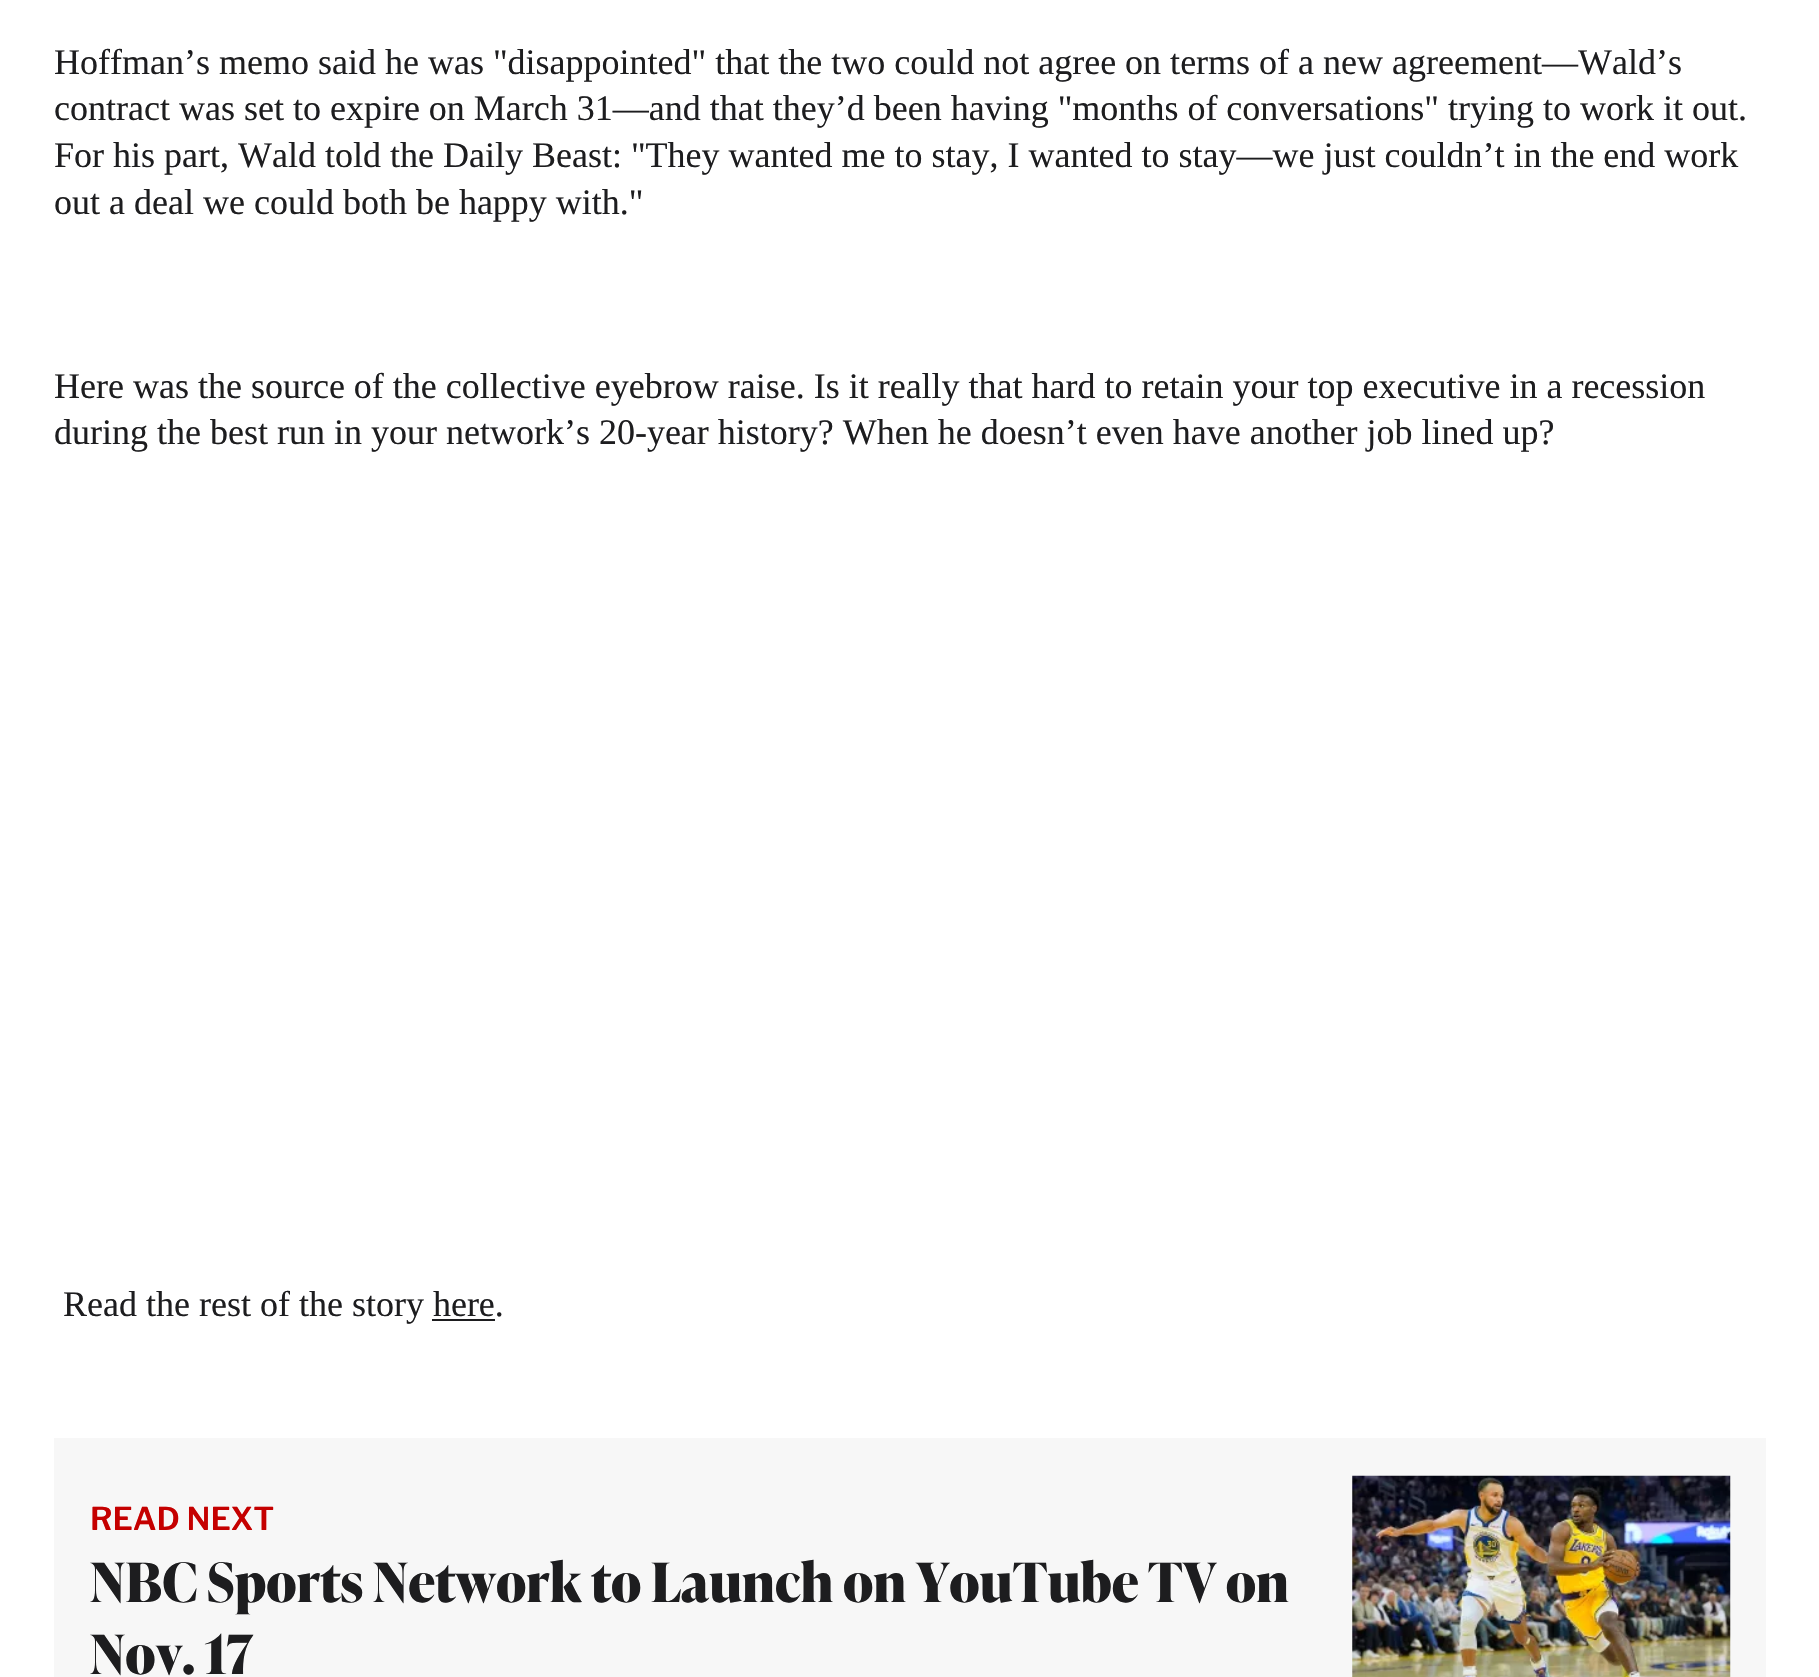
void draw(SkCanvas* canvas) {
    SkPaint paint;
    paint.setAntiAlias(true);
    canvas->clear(0xFFFFFFFF);
    SkFont font1(fontMgr->matchFamilyStyle("Liberation Serif", SkFontStyle::Normal()), 36);
    font1.setSubpixel(true);
    paint.setColor(0xFF1D1D1F);
    canvas->drawString("Hoffman’s memo said he was \"disappointed\" that the two could not agree on terms of a new agreement—Wald’s", 54, 74, font1, paint);
    canvas->drawString("contract was set to expire on March 31—and that they’d been having \"months of conversations\" trying to work it out.", 54, 120, font1, paint);
    canvas->drawString("For his part, Wald told the Daily Beast: \"They wanted me to stay, I wanted to stay—we just couldn’t in the end work", 54, 167, font1, paint);
    canvas->drawString("out a deal we could both be happy with.\"", 54, 214, font1, paint);
    canvas->drawString("Here was the source of the collective eyebrow raise. Is it really that hard to retain your top executive in a recession", 54, 398, font1, paint);
    canvas->drawString("during the best run in your network’s 20-year history? When he doesn’t even have another job lined up?", 54, 444, font1, paint);
    canvas->drawString("Read the rest of the story here.", 63, 1316, font1, paint);
    canvas->drawRect(SkRect::MakeXYWH(432, 1319, 63, 2), paint);
    paint.setColor(0xFFF7F7F7);
    canvas->drawRect(SkRect::MakeXYWH(54, 1438, 1712, 239), paint);
    SkFont font2(fontMgr->matchFamilyStyle("Libre Franklin", SkFontStyle(600, SkFontStyle::kNormal_Width, SkFontStyle::kUpright_Slant)), 31.5f);
    font2.setSubpixel(true);
    paint.setColor(0xFFC50000);
    canvas->drawString("READ NEXT", 90, 1530, font2, paint);
    SkFont font3(fontMgr->matchFamilyStyle("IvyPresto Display", SkFontStyle::Bold()), 54);
    font3.setSubpixel(true);
    paint.setColor(0xFF1D1D1F);
    canvas->drawString("NBC Sports Network to Launch on YouTube TV on", 90, 1602, font3, paint);
    canvas->drawString("Nov. 17", 90, 1674, font3, paint);
    canvas->drawImageRect(SkImages::DeferredFromEncodedData(SkData::MakeFromFileName("img1.png")), SkRect::MakeXYWH(1352, 1475, 379, 202), SkSamplingOptions());
}
